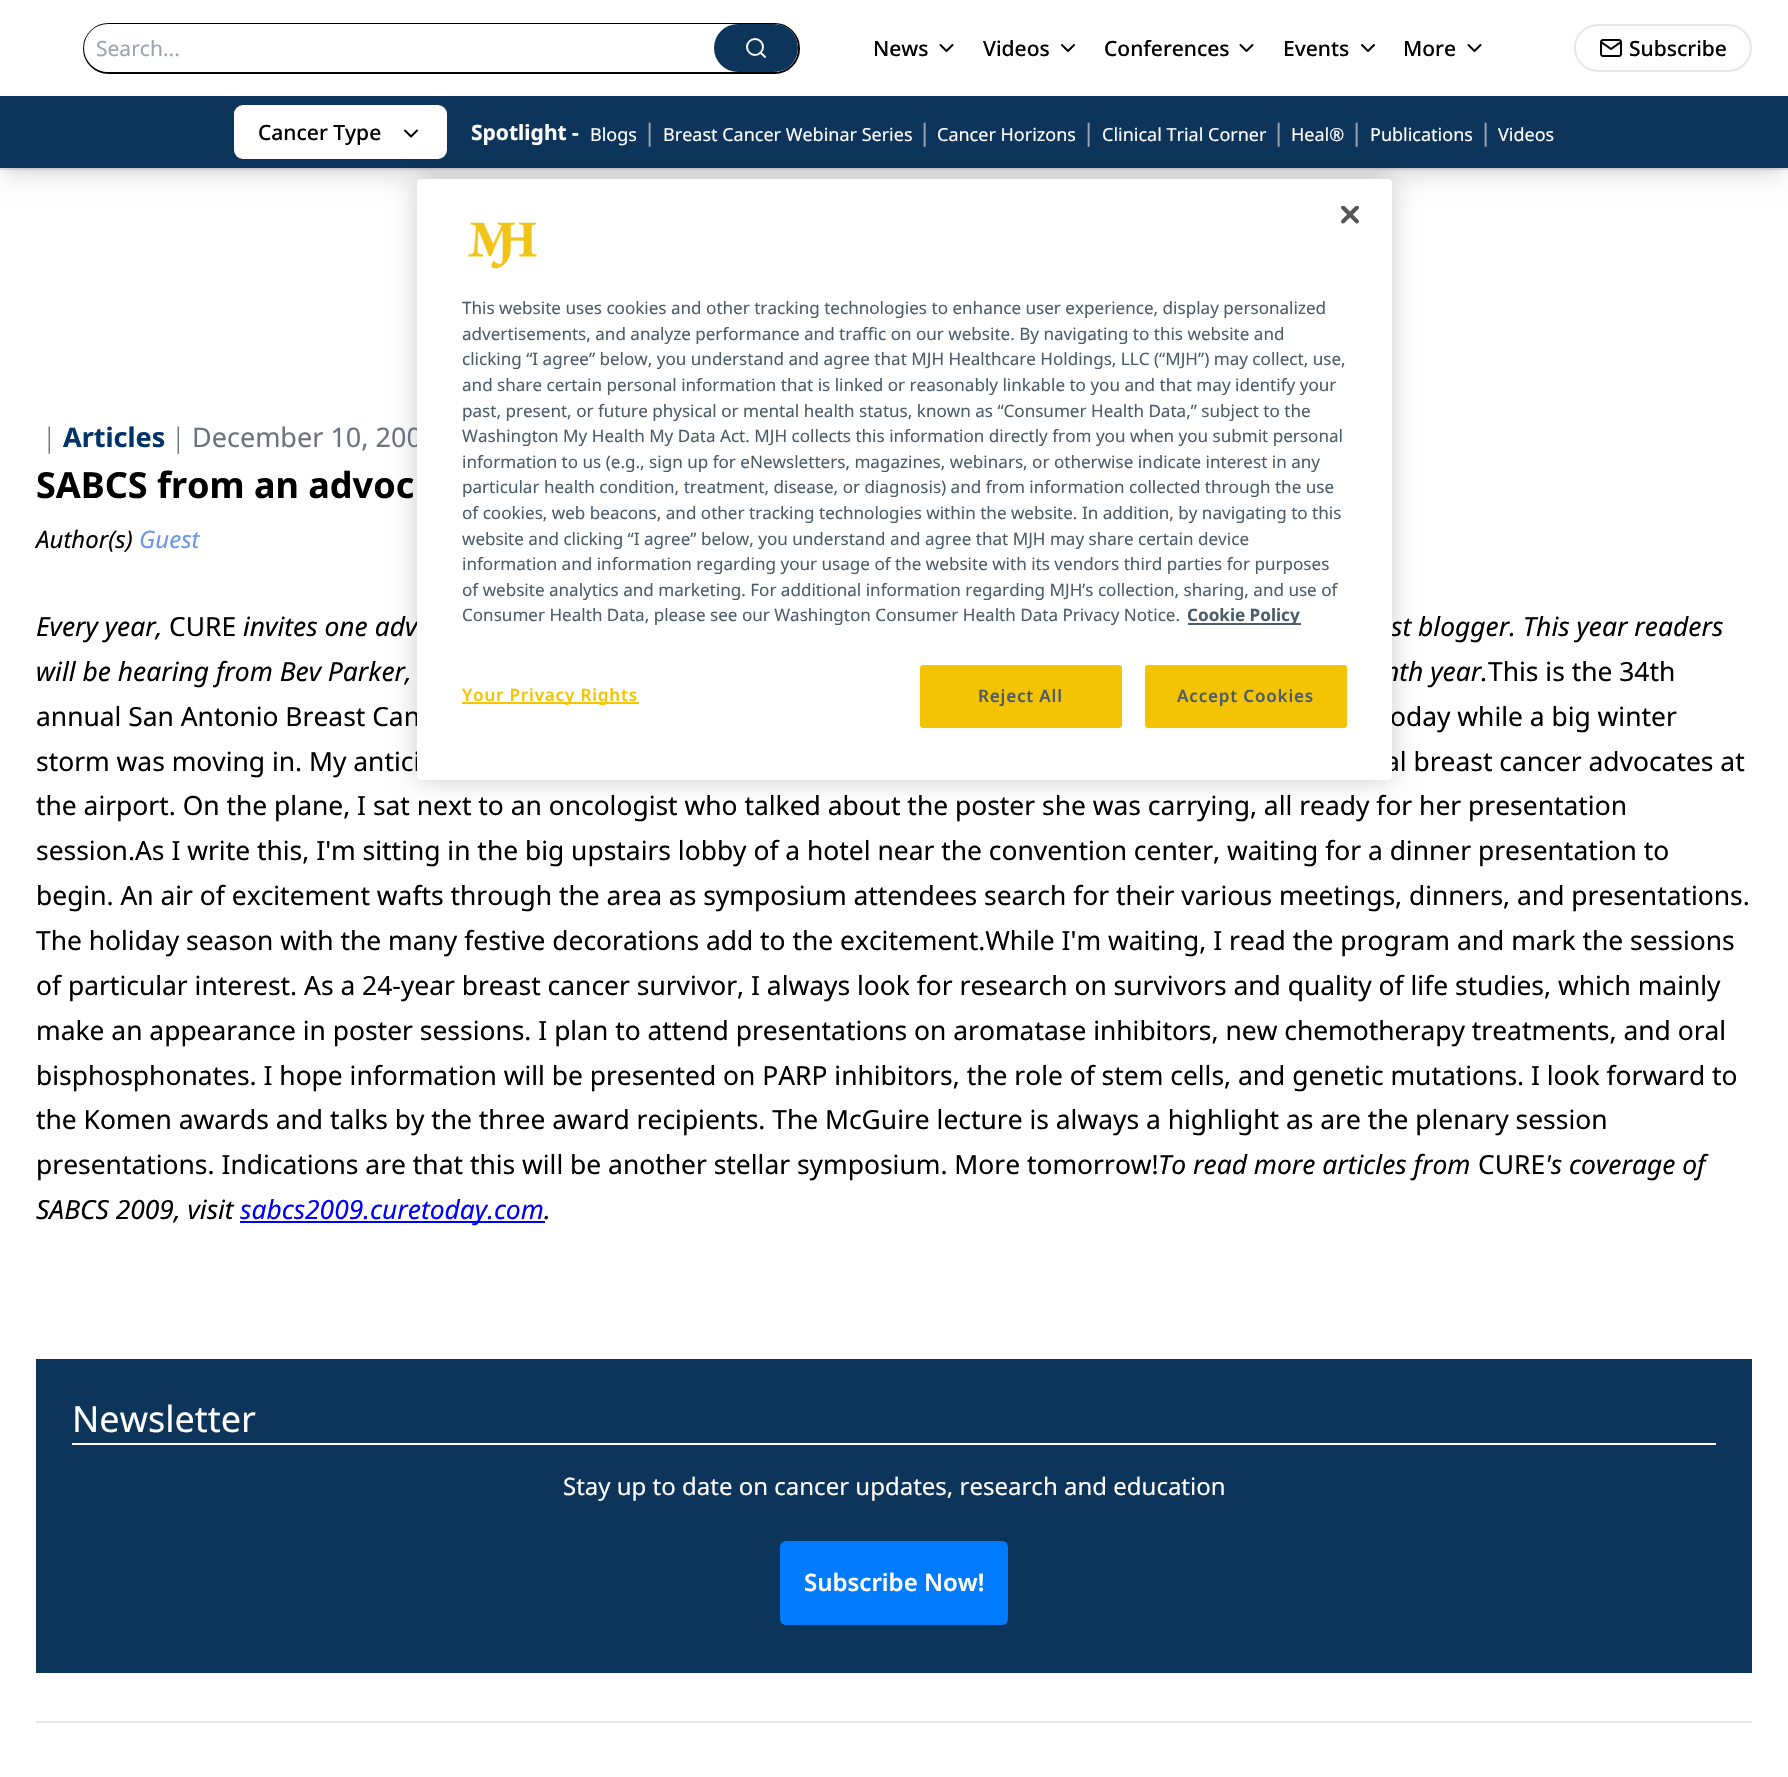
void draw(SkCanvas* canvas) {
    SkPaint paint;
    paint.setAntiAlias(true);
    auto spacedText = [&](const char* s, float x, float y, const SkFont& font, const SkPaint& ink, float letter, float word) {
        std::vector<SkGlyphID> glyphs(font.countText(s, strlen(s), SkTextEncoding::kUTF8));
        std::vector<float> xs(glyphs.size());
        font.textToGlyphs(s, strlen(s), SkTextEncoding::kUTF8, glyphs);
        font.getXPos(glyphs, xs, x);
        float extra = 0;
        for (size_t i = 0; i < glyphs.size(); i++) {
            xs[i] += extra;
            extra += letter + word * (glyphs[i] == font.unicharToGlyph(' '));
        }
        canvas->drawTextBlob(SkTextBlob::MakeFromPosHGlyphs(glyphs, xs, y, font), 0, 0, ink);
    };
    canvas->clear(0xFFFFFFFF);
    paint.setColor(0xFFE5E7EB);
    canvas->drawRect(SkRect::MakeXYWH(0, 168, 1788, 2), paint);
    paint.setStyle(SkPaint::kStroke_Style);
    paint.setStrokeWidth(2);
    paint.setColor(0xFF000000);
    canvas->drawRoundRect(SkRect::MakeXYWH(84, 24, 715, 49), 24.5f, 24.5f, paint);
    paint.setStyle(SkPaint::kFill_Style);
    paint.setColor(0xFFFFFFFF);
    canvas->drawRoundRect(SkRect::MakeXYWH(84, 24, 714, 48), 24, 24, paint);
    SkFont font1(fontMgr->matchFamilyStyle("Noto Sans", SkFontStyle::Normal()), 21);
    font1.setSubpixel(true);
    paint.setColor(0xFF9CA3AF);
    canvas->drawString("Search...", 96, 56, font1, paint);
    paint.setColor(0xFF0D345A);
    canvas->drawRoundRect(SkRect::MakeXYWH(714, 24, 84, 48), 24, 24, paint);
    paint.setStyle(SkPaint::kStroke_Style);
    paint.setColor(0xFFFFFFFF);
    canvas->drawCircle(755, 47, 8, paint);
    paint.setStrokeCap(SkPaint::kRound_Cap);
    paint.setStrokeJoin(SkPaint::kRound_Join);
    canvas->drawPath(SkPathBuilder().moveTo(765, 57).lineTo(760.5f, 52.5f).detach(), paint);
    SkFont font2(fontMgr->matchFamilyStyle("Noto Sans", SkFontStyle(500, SkFontStyle::kNormal_Width, SkFontStyle::kUpright_Slant)), 21);
    font2.setSubpixel(true);
    paint.setStyle(SkPaint::kFill_Style);
    paint.setColor(0xFF000000);
    canvas->drawString("News", 873, 56, font2, paint);
    paint.setStyle(SkPaint::kStroke_Style);
    canvas->drawPath(SkPathBuilder().moveTo(940.5f, 45).lineTo(946.5f, 51).lineTo(952.5f, 45).detach(), paint);
    paint.setStyle(SkPaint::kFill_Style);
    canvas->drawString("Videos", 983, 56, font2, paint);
    paint.setStyle(SkPaint::kStroke_Style);
    canvas->drawPath(SkPathBuilder().moveTo(1062, 45).lineTo(1068, 51).lineTo(1074, 45).detach(), paint);
    paint.setStyle(SkPaint::kFill_Style);
    canvas->drawString("Conferences", 1104, 56, font2, paint);
    paint.setStyle(SkPaint::kStroke_Style);
    canvas->drawPath(SkPathBuilder().moveTo(1240.5f, 45).lineTo(1246.5f, 51).lineTo(1252.5f, 45).detach(), paint);
    paint.setStyle(SkPaint::kFill_Style);
    canvas->drawString("Events", 1283, 56, font2, paint);
    paint.setStyle(SkPaint::kStroke_Style);
    canvas->drawPath(SkPathBuilder().moveTo(1362, 45).lineTo(1368, 51).lineTo(1374, 45).detach(), paint);
    paint.setStyle(SkPaint::kFill_Style);
    canvas->drawString("More", 1403, 56, font2, paint);
    paint.setStyle(SkPaint::kStroke_Style);
    canvas->drawPath(SkPathBuilder().moveTo(1468.5f, 45).lineTo(1474.5f, 51).lineTo(1480.5f, 45).detach(), paint);
    paint.setStrokeCap(SkPaint::kButt_Cap);
    paint.setStrokeJoin(SkPaint::kMiter_Join);
    paint.setColor(0xFFE5E7EB);
    canvas->drawRoundRect(SkRect::MakeXYWH(1575, 25, 176, 46), 23, 23, paint);
    canvas->drawImageRect(SkImages::DeferredFromEncodedData(SkData::MakeFromFileName("img1.png")), SkRect::MakeXYWH(1600, 39, 22, 18), SkSamplingOptions());
    paint.setStyle(SkPaint::kFill_Style);
    paint.setColor(0xFF000000);
    canvas->drawString("Subscribe", 1629, 56, font2, paint);
    paint.setColor(0x1A000000);
    paint.setMaskFilter(SkMaskFilter::MakeBlur(kNormal_SkBlurStyle, 4.5f));
    canvas->drawRect(SkRect::MakeXYWH(6, 108, 1776, 60), paint);
    paint.setMaskFilter(nullptr);
    paint.setMaskFilter(SkMaskFilter::MakeBlur(kNormal_SkBlurStyle, 11));
    canvas->drawRect(SkRect::MakeXYWH(5, 116, 1779, 63), paint);
    paint.setMaskFilter(nullptr);
    paint.setColor(0xFF0D345A);
    canvas->drawRect(SkRect::MakeXYWH(0, 96, 1788, 72), paint);
    paint.setColor(0xFFFFFFFF);
    canvas->drawRoundRect(SkRect::MakeXYWH(234, 105, 213, 54), 9, 9, paint);
    paint.setColor(0xFF000000);
    canvas->drawString("Cancer Type", 258, 140, font2, paint);
    paint.setStyle(SkPaint::kStroke_Style);
    paint.setStrokeCap(SkPaint::kRound_Cap);
    paint.setStrokeJoin(SkPaint::kRound_Join);
    canvas->drawPath(SkPathBuilder().moveTo(405, 130.5f).lineTo(411, 136.5f).lineTo(417, 130.5f).detach(), paint);
    SkFont font3(fontMgr->matchFamilyStyle("Noto Sans", SkFontStyle::Bold()), 21);
    font3.setSubpixel(true);
    paint.setStyle(SkPaint::kFill_Style);
    paint.setColor(0xFFFFFFFF);
    canvas->drawString("Spotlight -", 471, 140, font3, paint);
    SkFont font4(fontMgr->matchFamilyStyle("Noto Sans", SkFontStyle::Normal()), 18);
    font4.setSubpixel(true);
    canvas->drawString("Blogs", 590, 141, font4, paint);
    SkFont font5(fontMgr->matchFamilyStyle("Noto Sans", SkFontStyle::Normal()), 24);
    font5.setSubpixel(true);
    paint.setColor(0xFF9CA3AF);
    canvas->drawString("|", 643, 141, font5, paint);
    paint.setColor(0xFFFFFFFF);
    canvas->drawString("Breast Cancer Webinar Series", 663, 141, font4, paint);
    paint.setColor(0xFF9CA3AF);
    canvas->drawString("|", 918, 141, font5, paint);
    paint.setColor(0xFFFFFFFF);
    canvas->drawString("Cancer Horizons", 937, 141, font4, paint);
    paint.setColor(0xFF9CA3AF);
    canvas->drawString("|", 1082, 141, font5, paint);
    paint.setColor(0xFFFFFFFF);
    canvas->drawString("Clinical Trial Corner", 1102, 141, font4, paint);
    paint.setColor(0xFF9CA3AF);
    canvas->drawString("|", 1272, 141, font5, paint);
    paint.setColor(0xFFFFFFFF);
    canvas->drawString("Heal®", 1291, 141, font4, paint);
    paint.setColor(0xFF9CA3AF);
    canvas->drawString("|", 1350, 141, font5, paint);
    paint.setColor(0xFFFFFFFF);
    canvas->drawString("Publications", 1370, 141, font4, paint);
    paint.setColor(0xFF9CA3AF);
    canvas->drawString("|", 1479, 141, font5, paint);
    paint.setColor(0xFFFFFFFF);
    canvas->drawString("Videos", 1498, 141, font4, paint);
    paint.setColor(0x33000000);
    paint.setMaskFilter(SkMaskFilter::MakeBlur(kNormal_SkBlurStyle, 13.5f));
    canvas->drawRoundRect(SkRect::MakeXYWH(417, 179, 975, 601), 4, 4, paint);
    paint.setMaskFilter(nullptr);
    SkFont font6(fontMgr->matchFamilyStyle("Noto Sans", SkFontStyle::Normal()), 27);
    font6.setSubpixel(true);
    paint.setColor(0xFF6B7280);
    canvas->drawString("December 10, 200", 192, 447, font6, paint);
    SkFont font7(fontMgr->matchFamilyStyle("Noto Sans", SkFontStyle::Italic()), 26.4f);
    font7.setSubpixel(true);
    paint.setColor(0xFF000000);
    canvas->drawString("invites one adv", 243, 636, font7, paint);
    canvas->drawString("st blogger. This year readers", 1391, 636, font7, paint);
    canvas->drawString("nth year.", 1384, 681, font7, paint);
    SkFont font8(fontMgr->matchFamilyStyle("Noto Sans", SkFontStyle::Normal()), 26.4f);
    font8.setSubpixel(true);
    canvas->drawString("annual San Antonio Breast Can", 36, 726, font8, paint);
    canvas->drawString("oday while a big winter", 1390, 726, font8, paint);
    canvas->drawString("storm was moving in. My antici", 36, 771, font8, paint);
    canvas->drawString("al breast cancer advocates at", 1385, 771, font8, paint);
    paint.setColor(0xFFFFFFFF);
    canvas->drawRoundRect(SkRect::MakeXYWH(417, 179, 975, 601), 4, 4, paint);
    canvas->drawImageRect(SkImages::DeferredFromEncodedData(SkData::MakeFromFileName("img2.png")), SkRect::MakeXYWH(1341, 206, 18, 18), SkSamplingOptions());
    canvas->drawImageRect(SkImages::DeferredFromEncodedData(SkData::MakeFromFileName("img3.png")), SkRect::MakeXYWH(468, 222, 69, 47), SkSamplingOptions());
    SkFont font9(fontMgr->matchFamilyStyle("Noto Sans", SkFontStyle::Normal()), 17.07f);
    font9.setSubpixel(true);
    paint.setColor(0xFF4C5C6B);
    canvas->drawString("This website uses cookies and other tracking technologies to enhance user experience, display personalized", 462, 314, font9, paint);
    canvas->drawString("advertisements, and analyze performance and traffic on our website. By navigating to this website and", 462, 340, font9, paint);
    canvas->drawString("clicking “I agree” below, you understand and agree that MJH Healthcare Holdings, LLC (“MJH”) may collect, use,", 462, 365, font9, paint);
    canvas->drawString("and share certain personal information that is linked or reasonably linkable to you and that may identify your", 462, 391, font9, paint);
    canvas->drawString("past, present, or future physical or mental health status, known as “Consumer Health Data,” subject to the", 462, 417, font9, paint);
    canvas->drawString("Washington My Health My Data Act. MJH collects this information directly from you when you submit personal", 462, 442, font9, paint);
    canvas->drawString("information to us (e.g., sign up for eNewsletters, magazines, webinars, or otherwise indicate interest in any", 462, 468, font9, paint);
    canvas->drawString("particular health condition, treatment, disease, or diagnosis) and from information collected through the use", 462, 493, font9, paint);
    canvas->drawString("of cookies, web beacons, and other tracking technologies within the website.", 462, 519, font9, paint);
    canvas->drawString("In addition, by navigating to this", 1082, 519, font9, paint);
    canvas->drawString("website and clicking “I agree” below, you understand and agree that MJH may share certain device", 462, 545, font9, paint);
    canvas->drawString("information and information regarding your usage of the website with its vendors third parties for purposes", 462, 570, font9, paint);
    canvas->drawString("of website analytics and marketing. For additional information regarding MJH’s collection, sharing, and use of", 462, 596, font9, paint);
    canvas->drawString("Consumer Health Data, please see our Washington Consumer Health Data Privacy Notice.", 462, 621, font9, paint);
    canvas->drawRect(SkRect::MakeXYWH(1188, 623, 113, 2), paint);
    SkFont font10(fontMgr->matchFamilyStyle("Noto Sans", SkFontStyle::Bold()), 17.07f);
    font10.setSubpixel(true);
    canvas->drawString("Cookie Policy", 1187, 621, font10, paint);
    paint.setColor(0xFFF4C404);
    canvas->drawRect(SkRect::MakeXYWH(462, 702, 177, 2), paint);
    SkFont font11(fontMgr->matchFamilyStyle("Noto Sans", SkFontStyle(600, SkFontStyle::kNormal_Width, SkFontStyle::kUpright_Slant)), 17.07f);
    font11.setSubpixel(true);
    spacedText("Your Privacy Rights", 462, 701, font11, paint, 0.8f, 0);
    canvas->drawRoundRect(SkRect::MakeXYWH(921, 666, 200, 61), 2, 2, paint);
    paint.setStyle(SkPaint::kStroke_Style);
    paint.setStrokeCap(SkPaint::kButt_Cap);
    paint.setStrokeJoin(SkPaint::kMiter_Join);
    canvas->drawRoundRect(SkRect::MakeXYWH(921, 666, 200, 61), 2, 2, paint);
    paint.setStyle(SkPaint::kFill_Style);
    paint.setColor(0xFF4C5C6B);
    spacedText("Reject All", 978, 702, font11, paint, 0.8f, 0);
    paint.setColor(0xFFF4C404);
    canvas->drawRoundRect(SkRect::MakeXYWH(1146, 666, 200, 61), 2, 2, paint);
    paint.setStyle(SkPaint::kStroke_Style);
    canvas->drawRoundRect(SkRect::MakeXYWH(1146, 666, 200, 61), 2, 2, paint);
    paint.setStyle(SkPaint::kFill_Style);
    paint.setColor(0xFF4C5C6B);
    spacedText("Accept Cookies", 1177, 702, font11, paint, 0.8f, 0);
    SkFont font12(fontMgr->matchFamilyStyle("Noto Sans", SkFontStyle(300, SkFontStyle::kNormal_Width, SkFontStyle::kUpright_Slant)), 27);
    font12.setSubpixel(true);
    paint.setColor(0xFF6B7280);
    canvas->drawString("|", 42, 447, font12, paint);
    SkFont font13(fontMgr->matchFamilyStyle("Noto Sans", SkFontStyle::Bold()), 27);
    font13.setSubpixel(true);
    paint.setColor(0xFF003366);
    canvas->drawString("Articles", 63, 447, font13, paint);
    paint.setColor(0xFF6B7280);
    canvas->drawString("|", 171, 447, font12, paint);
    SkFont font14(fontMgr->matchFamilyStyle("Noto Sans", SkFontStyle::Bold()), 36);
    font14.setSubpixel(true);
    paint.setColor(0xFF000000);
    canvas->drawString("SABCS from an advoc", 36, 498, font14, paint);
    SkFont font15(fontMgr->matchFamilyStyle("Noto Sans", SkFontStyle::Italic()), 24);
    font15.setSubpixel(true);
    canvas->drawString("Author(s)", 36, 548, font15, paint);
    paint.setColor(0xFF6A95EC);
    canvas->drawString("Guest", 139, 548, font15, paint);
    paint.setColor(0xFF000000);
    canvas->drawString("Every year,", 36, 636, font7, paint);
    canvas->drawString("CURE", 169, 636, font8, paint);
    canvas->drawString("will be hearing from Bev Parker,", 36, 681, font7, paint);
    canvas->drawString("This is the 34th", 1488, 681, font8, paint);
    canvas->drawString("the airport. On the plane, I sat next to an oncologist who talked about the poster she was carrying, all ready for her presentation", 36, 815, font8, paint);
    canvas->drawString("session.As I write this, I'm sitting in the big upstairs lobby of a hotel near the convention center, waiting for a dinner presentation to", 36, 860, font8, paint);
    canvas->drawString("begin. An air of excitement wafts through the area as symposium attendees search for their various meetings, dinners, and presentations.", 36, 905, font8, paint);
    canvas->drawString("The holiday season with the many festive decorations add to the excitement.While I'm waiting, I read the program and mark the sessions", 36, 950, font8, paint);
    canvas->drawString("of particular interest. As a 24-year breast cancer survivor, I always look for research on survivors and quality of life studies, which mainly", 36, 995, font8, paint);
    canvas->drawString("make an appearance in poster sessions. I plan to attend presentations on aromatase inhibitors, new chemotherapy treatments, and oral", 36, 1040, font8, paint);
    canvas->drawString("bisphosphonates. I hope information will be presented on PARP inhibitors, the role of stem cells, and genetic mutations. I look forward to", 36, 1085, font8, paint);
    canvas->drawString("the Komen awards and talks by the three award recipients. The McGuire lecture is always a highlight as are the plenary session", 36, 1129, font8, paint);
    canvas->drawString("'s coverage of", 1545, 1174, font7, paint);
    canvas->drawString("SABCS 2009, visit", 36, 1219, font7, paint);
    paint.setColor(0xFF0000FF);
    canvas->drawRect(SkRect::MakeXYWH(240, 1221, 305, 2), paint);
    canvas->drawString("sabcs2009.curetoday.com", 240, 1219, font7, paint);
    paint.setColor(0xFF000000);
    canvas->drawString(".", 544, 1219, font7, paint);
    canvas->drawString("presentations. Indications are that this will be another stellar symposium. More tomorrow!", 36, 1174, font8, paint);
    canvas->drawString("To read more articles from", 1158, 1174, font7, paint);
    canvas->drawString("CURE", 1478, 1174, font8, paint);
    paint.setColor(0xFF0D345A);
    canvas->drawRect(SkRect::MakeXYWH(36, 1359, 1716, 314), paint);
    paint.setColor(0xFFFFFFFF);
    canvas->drawRect(SkRect::MakeXYWH(72, 1443, 1644, 2), paint);
    SkFont font16(fontMgr->matchFamilyStyle("Noto Sans", SkFontStyle::Normal()), 36);
    font16.setSubpixel(true);
    canvas->drawString("Newsletter", 72, 1432, font16, paint);
    canvas->drawString("Stay up to date on cancer updates, research and education", 563, 1495, font5, paint);
    paint.setColor(0xFF007BFD);
    canvas->drawRoundRect(SkRect::MakeXYWH(780, 1541, 228, 84), 6, 6, paint);
    SkFont font17(fontMgr->matchFamilyStyle("Noto Sans", SkFontStyle(600, SkFontStyle::kNormal_Width, SkFontStyle::kUpright_Slant)), 24);
    font17.setSubpixel(true);
    paint.setColor(0xFFFFFFFF);
    canvas->drawString("Subscribe Now!", 804, 1591, font17, paint);
    paint.setColor(0xFFE5E7EB);
    canvas->drawRect(SkRect::MakeXYWH(36, 1721, 1716, 2), paint);
}
